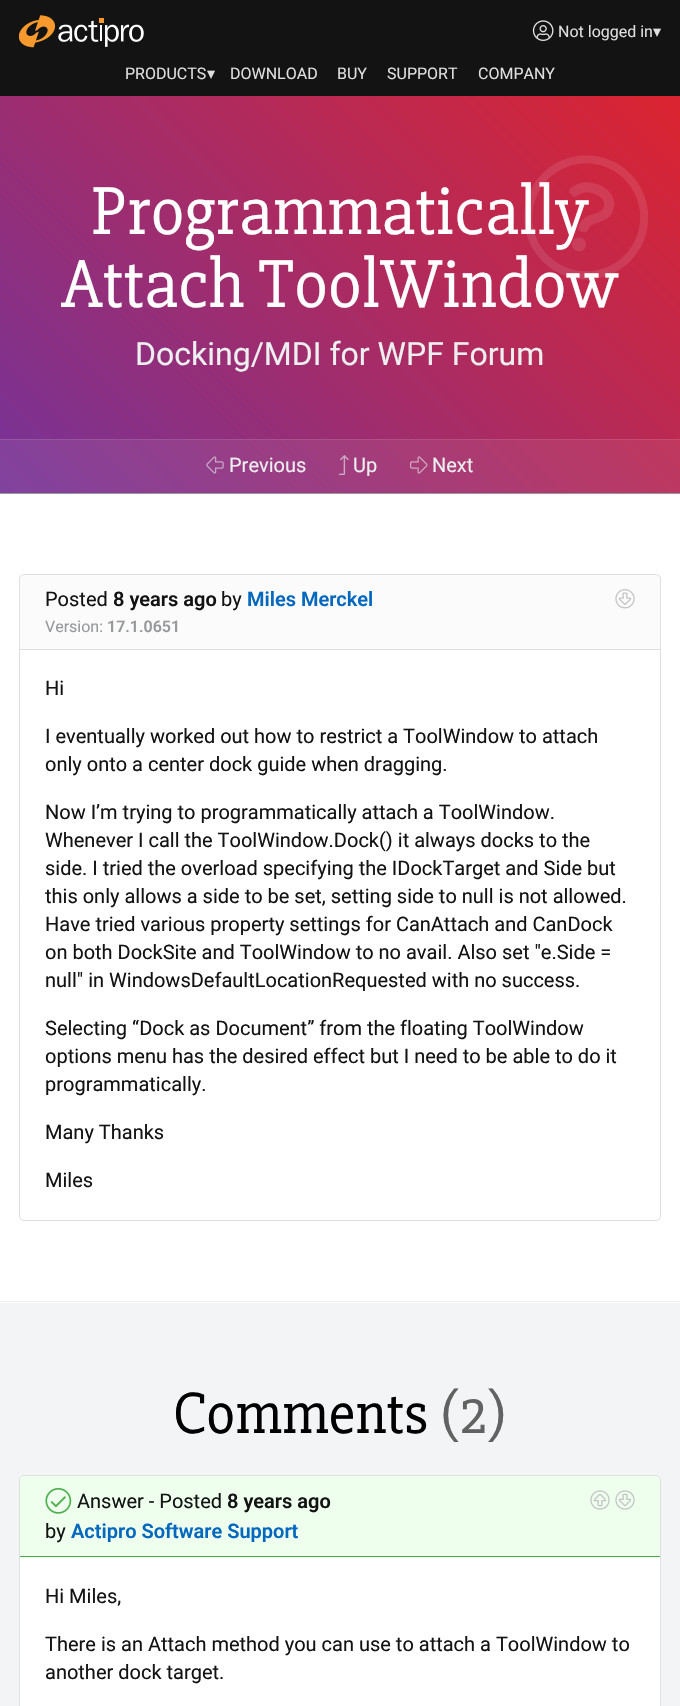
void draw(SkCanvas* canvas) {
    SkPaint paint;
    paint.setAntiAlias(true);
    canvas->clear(0xFFFFFFFF);
    paint.setColor(0xFF131314);
    canvas->drawRect(SkRect::MakeXYWH(0, 0, 680, 96), paint);
    canvas->drawImageRect(SkImages::DeferredFromEncodedData(SkData::MakeFromFileName("img1.png")), SkRect::MakeXYWH(19, 15, 125, 33), SkSamplingOptions());
    canvas->drawImageRect(SkImages::DeferredFromEncodedData(SkData::MakeFromFileName("img2.png")), SkRect::MakeXYWH(532, 20, 22, 21), SkSamplingOptions());
    SkFont font1(fontMgr->matchFamilyStyle("Roboto", SkFontStyle::Normal()), 16);
    font1.setSubpixel(true);
    paint.setColor(0xFFDFDFE0);
    canvas->drawString("Not logged in", 558, 37, font1, paint);
    SkFont font2(fontMgr->matchFamilyStyle("DejaVu Sans", SkFontStyle::Normal()), 16);
    font2.setSubpixel(true);
    canvas->drawString("▾", 653, 37, font2, paint);
    canvas->drawString("PRODUCTS", 125, 79, font1, paint);
    canvas->drawString("▾", 207, 79, font2, paint);
    canvas->drawString("DOWNLOAD", 230, 79, font1, paint);
    canvas->drawString("BUY", 337, 79, font1, paint);
    canvas->drawString("SUPPORT", 387, 79, font1, paint);
    canvas->drawString("COMPANY", 478, 79, font1, paint);
    {
        const SkColor colors[] = {0xFF763398, 0xFFDC2430};
        const float stops[] = {0, 1};
        const SkPoint ends[] = {{71, 563}, {609, 25}};
        paint.setShader(SkGradientShader::MakeLinear(ends, colors, stops, 2, SkTileMode::kClamp));
        paint.setAlpha(255);
    }
    canvas->drawRect(SkRect::MakeXYWH(0, 96, 680, 397), paint);
    paint.setShader(nullptr);
    paint.setColor(0xFF96999C);
    canvas->drawRect(SkRect::MakeXYWH(0, 493, 680, 1), paint);
    SkFont font3(fontMgr->matchFamilyStyle("Slabo 27px", SkFontStyle::Normal()), 70);
    font3.setSubpixel(true);
    paint.setColor(0xFFFFFFFF);
    canvas->drawString("Programmatically", 91, 234, font3, paint);
    canvas->drawString("Attach ToolWindow", 61, 307, font3, paint);
    canvas->drawImageRect(SkImages::DeferredFromEncodedData(SkData::MakeFromFileName("img3.png")), SkRect::MakeXYWH(524, 155, 124, 125), SkSamplingOptions());
    SkFont font4(fontMgr->matchFamilyStyle("Roboto", SkFontStyle::Normal()), 32);
    font4.setSubpixel(true);
    paint.setColor(0xFFECEEEF);
    canvas->drawString("Docking/MDI for WPF Forum", 135, 365, font4, paint);
    paint.setColor(0x12FFFFFF);
    canvas->drawRect(SkRect::MakeXYWH(0, 439, 680, 54), paint);
    paint.setColor(0x1AFFFFFF);
    canvas->drawRect(SkRect::MakeXYWH(0, 439, 680, 1), paint);
    canvas->drawImageRect(SkImages::DeferredFromEncodedData(SkData::MakeFromFileName("img4.png")), SkRect::MakeXYWH(206, 456, 18, 18), SkSamplingOptions());
    SkFont font5(fontMgr->matchFamilyStyle("Roboto", SkFontStyle::Normal()), 20);
    font5.setSubpixel(true);
    paint.setColor(0xFFECEEEF);
    canvas->drawString("Previous", 229, 472, font5, paint);
    canvas->drawImageRect(SkImages::DeferredFromEncodedData(SkData::MakeFromFileName("img5.png")), SkRect::MakeXYWH(338, 455, 11, 20), SkSamplingOptions());
    canvas->drawString("Up", 353, 472, font5, paint);
    canvas->drawImageRect(SkImages::DeferredFromEncodedData(SkData::MakeFromFileName("img6.png")), SkRect::MakeXYWH(410, 456, 18, 18), SkSamplingOptions());
    canvas->drawString("Next", 432, 472, font5, paint);
    paint.setStyle(SkPaint::kStroke_Style);
    paint.setStrokeWidth(1);
    paint.setColor(0xFFDFDFE0);
    canvas->drawRoundRect(SkRect::MakeXYWH(19.5f, 574.5f, 641, 646), 4.5f, 4.5f, paint);
    paint.setStyle(SkPaint::kFill_Style);
    paint.setColor(0xFFFBFBFB);
    canvas->drawPath(SkPathBuilder().moveTo(25, 575).lineTo(655, 575).cubicTo(658, 575, 660, 577, 660, 580).lineTo(660, 650).lineTo(20, 650).lineTo(20, 580).cubicTo(20, 577, 22, 575, 25, 575).close().detach(), paint);
    paint.setColor(0xFFDFDFE0);
    canvas->drawRect(SkRect::MakeXYWH(20, 649, 640, 1), paint);
    paint.setColor(0xFF131314);
    canvas->drawString("Posted", 45, 606, font5, paint);
    SkFont font6(fontMgr->matchFamilyStyle("Roboto", SkFontStyle(600, SkFontStyle::kNormal_Width, SkFontStyle::kUpright_Slant)), 20);
    font6.setSubpixel(true);
    canvas->drawString("8 years ago", 113, 606, font6, paint);
    canvas->drawString("by", 221, 606, font5, paint);
    paint.setColor(0xFF0267BF);
    canvas->drawString("Miles Merckel", 247, 606, font6, paint);
    canvas->drawImageRect(SkImages::DeferredFromEncodedData(SkData::MakeFromFileName("img7.png")), SkRect::MakeXYWH(615, 589, 20, 20), SkSamplingOptions());
    paint.setColor(0xFF96999C);
    canvas->drawString("Version:", 45, 632, font1, paint);
    SkFont font7(fontMgr->matchFamilyStyle("Roboto", SkFontStyle(600, SkFontStyle::kNormal_Width, SkFontStyle::kUpright_Slant)), 16);
    font7.setSubpixel(true);
    canvas->drawString("17.1.0651", 107, 632, font7, paint);
    paint.setColor(0xFF131314);
    canvas->drawString("Hi", 45, 695, font5, paint);
    canvas->drawString("I eventually worked out how to restrict a ToolWindow to attach", 45, 743, font5, paint);
    canvas->drawString("only onto a center dock guide when dragging.", 45, 771, font5, paint);
    canvas->drawString("Now I’m trying to programmatically attach a ToolWindow.", 45, 819, font5, paint);
    canvas->drawString("Whenever I call the ToolWindow.Dock() it always docks to the", 45, 847, font5, paint);
    canvas->drawString("side. I tried the overload specifying the IDockTarget and Side but", 45, 875, font5, paint);
    canvas->drawString("this only allows a side to be set, setting side to null is not allowed.", 45, 903, font5, paint);
    canvas->drawString("Have tried various property settings for CanAttach and CanDock", 45, 931, font5, paint);
    canvas->drawString("on both DockSite and ToolWindow to no avail. Also set \"e.Side =", 45, 959, font5, paint);
    canvas->drawString("null\" in WindowsDefaultLocationRequested with no success.", 45, 987, font5, paint);
    canvas->drawString("Selecting “Dock as Document” from the floating ToolWindow", 45, 1035, font5, paint);
    canvas->drawString("options menu has the desired effect but I need to be able to do it", 45, 1063, font5, paint);
    canvas->drawString("programmatically.", 45, 1091, font5, paint);
    canvas->drawString("Many Thanks", 45, 1139, font5, paint);
    canvas->drawString("Miles", 45, 1187, font5, paint);
    paint.setColor(0xFFF2F4F5);
    canvas->drawRect(SkRect::MakeXYWH(0, 1303, 680, 403), paint);
    paint.setColor(0xFFECEEEF);
    canvas->drawRect(SkRect::MakeXYWH(0, 1301, 680, 1), paint);
    SkFont font8(fontMgr->matchFamilyStyle("Slabo 27px", SkFontStyle::Normal()), 60);
    font8.setSubpixel(true);
    paint.setColor(0xFF000000);
    canvas->drawString("Comments", 173, 1433, font8, paint);
    paint.setColor(0xFF616262);
    canvas->drawString("(2)", 440, 1433, font8, paint);
    paint.setColor(0xFFFFFFFF);
    canvas->drawRoundRect(SkRect::MakeXYWH(19.5f, 1475.5f, 641, 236), 4.5f, 4.5f, paint);
    paint.setStyle(SkPaint::kStroke_Style);
    paint.setColor(0xFFDFDFE0);
    canvas->drawRoundRect(SkRect::MakeXYWH(19.5f, 1475.5f, 641, 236), 4.5f, 4.5f, paint);
    paint.setStyle(SkPaint::kFill_Style);
    paint.setColor(0xFFEEFFEE);
    canvas->drawPath(SkPathBuilder().moveTo(25, 1476).lineTo(655, 1476).cubicTo(658, 1476, 660, 1478, 660, 1481).lineTo(660, 1558).lineTo(20, 1558).lineTo(20, 1481).cubicTo(20, 1478, 22, 1476, 25, 1476).close().detach(), paint);
    paint.setColor(0xFF4CAE4C);
    canvas->drawRect(SkRect::MakeXYWH(20, 1556, 640, 1), paint);
    canvas->drawImageRect(SkImages::DeferredFromEncodedData(SkData::MakeFromFileName("img8.png")), SkRect::MakeXYWH(45, 1487, 27, 27), SkSamplingOptions());
    paint.setColor(0xFF131314);
    canvas->drawString("Answer - Posted", 77, 1508, font5, paint);
    canvas->drawString("8 years ago", 227, 1508, font6, paint);
    canvas->drawString("by", 45, 1538, font5, paint);
    paint.setColor(0xFF0267BF);
    canvas->drawString("Actipro Software Support", 71, 1538, font6, paint);
    canvas->drawImageRect(SkImages::DeferredFromEncodedData(SkData::MakeFromFileName("img9.png")), SkRect::MakeXYWH(590, 1490, 20, 20), SkSamplingOptions());
    canvas->drawImageRect(SkImages::DeferredFromEncodedData(SkData::MakeFromFileName("img10.png")), SkRect::MakeXYWH(615, 1490, 20, 20), SkSamplingOptions());
    paint.setColor(0xFF131314);
    canvas->drawString("Hi Miles,", 45, 1603, font5, paint);
    canvas->drawString("There is an Attach method you can use to attach a ToolWindow to", 45, 1651, font5, paint);
    canvas->drawString("another dock target.", 45, 1679, font5, paint);
}
